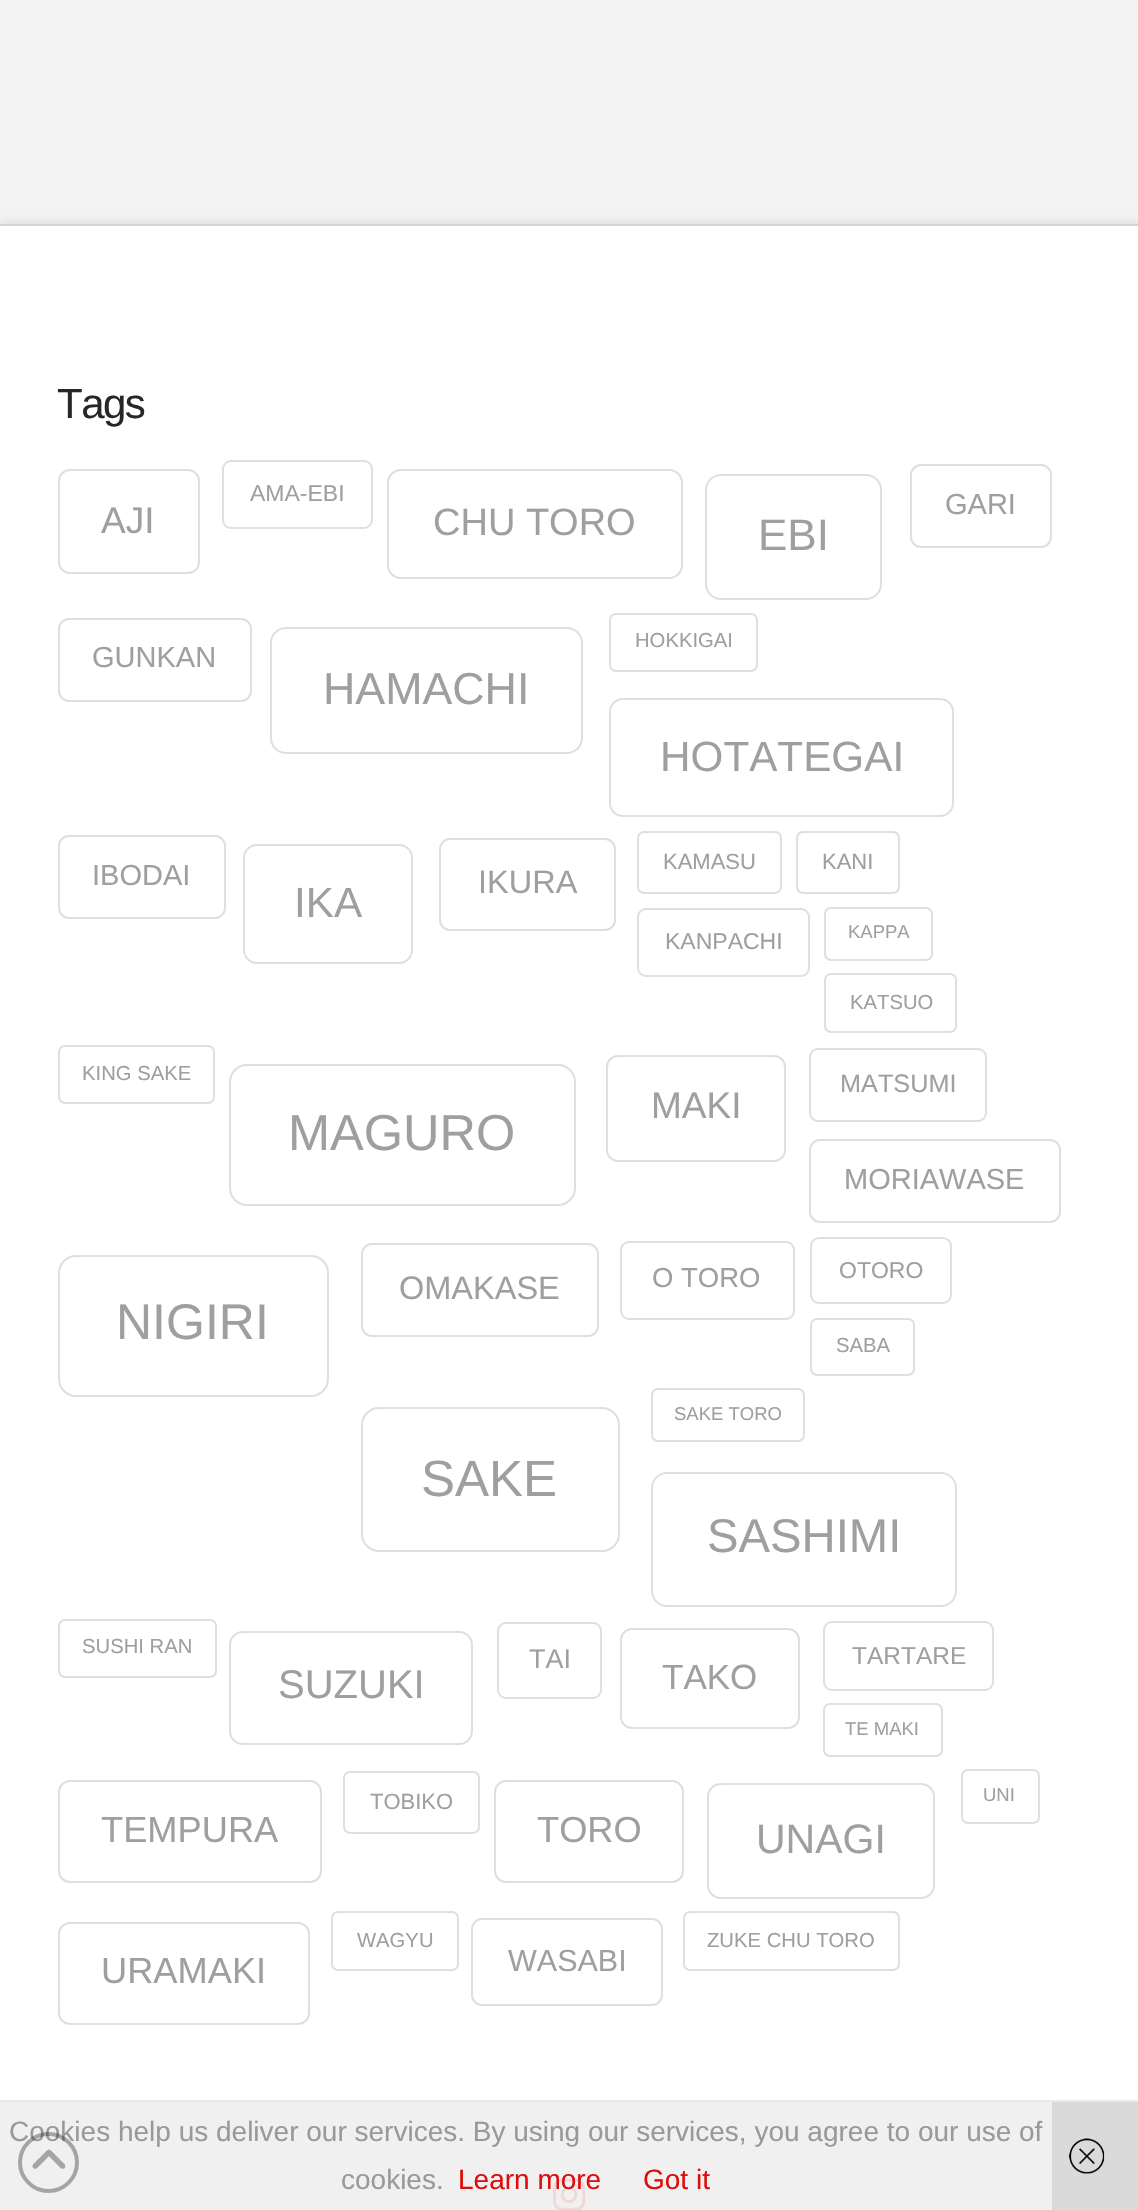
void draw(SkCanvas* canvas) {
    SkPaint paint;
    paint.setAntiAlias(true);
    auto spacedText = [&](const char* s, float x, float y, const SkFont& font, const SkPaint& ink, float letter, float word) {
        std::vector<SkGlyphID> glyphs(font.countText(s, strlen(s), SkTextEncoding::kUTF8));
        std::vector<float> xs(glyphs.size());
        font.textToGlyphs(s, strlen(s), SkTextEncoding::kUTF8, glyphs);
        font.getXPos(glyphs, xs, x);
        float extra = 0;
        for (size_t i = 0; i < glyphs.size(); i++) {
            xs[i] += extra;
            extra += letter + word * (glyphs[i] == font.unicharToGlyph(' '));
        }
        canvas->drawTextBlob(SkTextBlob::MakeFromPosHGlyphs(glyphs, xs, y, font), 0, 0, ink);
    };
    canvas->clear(0xFFF3F3F3);
    paint.setColor(0x12000000);
    paint.setMaskFilter(SkMaskFilter::MakeBlur(kNormal_SkBlurStyle, 3.5f));
    canvas->drawRect(SkRect::MakeXYWH(0, 221, 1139, 1876), paint);
    paint.setMaskFilter(nullptr);
    paint.setColor(0xFFFFFFFF);
    canvas->drawRect(SkRect::MakeXYWH(0, 226, 1138, 1874), paint);
    paint.setColor(0xFFD4D4D4);
    canvas->drawRect(SkRect::MakeXYWH(0, 224, 1138, 2), paint);
    SkFont font1(fontMgr->matchFamilyStyle("Liberation Sans", SkFontStyle::Normal()), 42);
    font1.setSubpixel(true);
    paint.setColor(0xFF272727);
    spacedText("Tags", 57, 418, font1, paint, -1.5f, 0);
    paint.setStyle(SkPaint::kStroke_Style);
    paint.setStrokeWidth(2);
    paint.setColor(0xFFDFDFDF);
    canvas->drawRoundRect(SkRect::MakeXYWH(223, 461, 149, 67), 8, 8, paint);
    SkFont font2(fontMgr->matchFamilyStyle("Liberation Sans", SkFontStyle::Normal()), 23);
    font2.setSubpixel(true);
    paint.setStyle(SkPaint::kFill_Style);
    paint.setColor(0xFF9F9F9F);
    canvas->drawString("AMA-EBI", 250, 501, font2, paint);
    paint.setStyle(SkPaint::kStroke_Style);
    paint.setColor(0xFFDFDFDF);
    canvas->drawRoundRect(SkRect::MakeXYWH(911, 465, 140, 82), 10, 10, paint);
    SkFont font3(fontMgr->matchFamilyStyle("Liberation Sans", SkFontStyle::Normal()), 29);
    font3.setSubpixel(true);
    paint.setStyle(SkPaint::kFill_Style);
    paint.setColor(0xFF9F9F9F);
    canvas->drawString("GARI", 945, 514, font3, paint);
    paint.setStyle(SkPaint::kStroke_Style);
    paint.setColor(0xFFDFDFDF);
    canvas->drawRoundRect(SkRect::MakeXYWH(59, 470, 140, 103), 11, 11, paint);
    SkFont font4(fontMgr->matchFamilyStyle("Liberation Sans", SkFontStyle::Normal()), 37);
    font4.setSubpixel(true);
    paint.setStyle(SkPaint::kFill_Style);
    paint.setColor(0xFF9F9F9F);
    canvas->drawString("AJI", 101, 533, font4, paint);
    paint.setStyle(SkPaint::kStroke_Style);
    paint.setColor(0xFFDFDFDF);
    canvas->drawRoundRect(SkRect::MakeXYWH(388, 470, 294, 108), 13, 13, paint);
    SkFont font5(fontMgr->matchFamilyStyle("Liberation Sans", SkFontStyle::Normal()), 38);
    font5.setSubpixel(true);
    paint.setStyle(SkPaint::kFill_Style);
    paint.setColor(0xFF9F9F9F);
    canvas->drawString("CHU TORO", 433, 535, font5, paint);
    paint.setStyle(SkPaint::kStroke_Style);
    paint.setColor(0xFFDFDFDF);
    canvas->drawRoundRect(SkRect::MakeXYWH(706, 475, 175, 124), 15, 15, paint);
    SkFont font6(fontMgr->matchFamilyStyle("Liberation Sans", SkFontStyle::Normal()), 44);
    font6.setSubpixel(true);
    paint.setStyle(SkPaint::kFill_Style);
    paint.setColor(0xFF9F9F9F);
    canvas->drawString("EBI", 758, 550, font6, paint);
    paint.setStyle(SkPaint::kStroke_Style);
    paint.setColor(0xFFDFDFDF);
    canvas->drawRoundRect(SkRect::MakeXYWH(610, 614, 147, 57), 6, 6, paint);
    SkFont font7(fontMgr->matchFamilyStyle("Liberation Sans", SkFontStyle::Normal()), 20.25f);
    font7.setSubpixel(true);
    paint.setStyle(SkPaint::kFill_Style);
    paint.setColor(0xFF9F9F9F);
    canvas->drawString("HOKKIGAI", 635, 647, font7, paint);
    paint.setStyle(SkPaint::kStroke_Style);
    paint.setColor(0xFFDFDFDF);
    canvas->drawRoundRect(SkRect::MakeXYWH(59, 619, 192, 82), 10, 10, paint);
    paint.setStyle(SkPaint::kFill_Style);
    paint.setColor(0xFF9F9F9F);
    canvas->drawString("GUNKAN", 92, 667, font3, paint);
    paint.setStyle(SkPaint::kStroke_Style);
    paint.setColor(0xFFDFDFDF);
    canvas->drawRoundRect(SkRect::MakeXYWH(271, 628, 311, 125), 15, 15, paint);
    SkFont font8(fontMgr->matchFamilyStyle("Liberation Sans", SkFontStyle::Normal()), 44.75f);
    font8.setSubpixel(true);
    paint.setStyle(SkPaint::kFill_Style);
    paint.setColor(0xFF9F9F9F);
    canvas->drawString("HAMACHI", 323, 704, font8, paint);
    paint.setStyle(SkPaint::kStroke_Style);
    paint.setColor(0xFFDFDFDF);
    canvas->drawRoundRect(SkRect::MakeXYWH(610, 699, 343, 117), 13, 13, paint);
    SkFont font9(fontMgr->matchFamilyStyle("Liberation Sans", SkFontStyle::Normal()), 42.25f);
    font9.setSubpixel(true);
    paint.setStyle(SkPaint::kFill_Style);
    paint.setColor(0xFF9F9F9F);
    canvas->drawString("HOTATEGAI", 660, 771, font9, paint);
    paint.setStyle(SkPaint::kStroke_Style);
    paint.setColor(0xFFDFDFDF);
    canvas->drawRoundRect(SkRect::MakeXYWH(638, 832, 143, 61), 6, 6, paint);
    SkFont font10(fontMgr->matchFamilyStyle("Liberation Sans", SkFontStyle::Normal()), 22);
    font10.setSubpixel(true);
    paint.setStyle(SkPaint::kFill_Style);
    paint.setColor(0xFF9F9F9F);
    canvas->drawString("KAMASU", 663, 869, font10, paint);
    paint.setStyle(SkPaint::kStroke_Style);
    paint.setColor(0xFFDFDFDF);
    canvas->drawRoundRect(SkRect::MakeXYWH(797, 832, 102, 61), 6, 6, paint);
    paint.setStyle(SkPaint::kFill_Style);
    paint.setColor(0xFF9F9F9F);
    canvas->drawString("KANI", 822, 869, font10, paint);
    paint.setStyle(SkPaint::kStroke_Style);
    paint.setColor(0xFFDFDFDF);
    canvas->drawRoundRect(SkRect::MakeXYWH(59, 836, 166, 82), 10, 10, paint);
    paint.setStyle(SkPaint::kFill_Style);
    paint.setColor(0xFF9F9F9F);
    canvas->drawString("IBODAI", 92, 885, font3, paint);
    paint.setStyle(SkPaint::kStroke_Style);
    paint.setColor(0xFFDFDFDF);
    canvas->drawRoundRect(SkRect::MakeXYWH(440, 839, 175, 91), 10, 10, paint);
    SkFont font11(fontMgr->matchFamilyStyle("Liberation Sans", SkFontStyle::Normal()), 32.5f);
    font11.setSubpixel(true);
    paint.setStyle(SkPaint::kFill_Style);
    paint.setColor(0xFF9F9F9F);
    canvas->drawString("IKURA", 478, 893, font11, paint);
    paint.setStyle(SkPaint::kStroke_Style);
    paint.setColor(0xFFDFDFDF);
    canvas->drawRoundRect(SkRect::MakeXYWH(244, 845, 168, 118), 13, 13, paint);
    paint.setStyle(SkPaint::kFill_Style);
    paint.setColor(0xFF9F9F9F);
    canvas->drawString("IKA", 294, 917, font9, paint);
    paint.setStyle(SkPaint::kStroke_Style);
    paint.setColor(0xFFDFDFDF);
    canvas->drawRoundRect(SkRect::MakeXYWH(638, 909, 171, 67), 8, 8, paint);
    paint.setStyle(SkPaint::kFill_Style);
    paint.setColor(0xFF9F9F9F);
    canvas->drawString("KANPACHI", 665, 949, font2, paint);
    paint.setStyle(SkPaint::kStroke_Style);
    paint.setColor(0xFFDFDFDF);
    canvas->drawRoundRect(SkRect::MakeXYWH(825, 908, 107, 52), 6, 6, paint);
    SkFont font12(fontMgr->matchFamilyStyle("Liberation Sans", SkFontStyle::Normal()), 18.5f);
    font12.setSubpixel(true);
    paint.setStyle(SkPaint::kFill_Style);
    paint.setColor(0xFF9F9F9F);
    canvas->drawString("KAPPA", 848, 938, font12, paint);
    paint.setStyle(SkPaint::kStroke_Style);
    paint.setColor(0xFFDFDFDF);
    canvas->drawRoundRect(SkRect::MakeXYWH(825, 974, 131, 58), 6, 6, paint);
    paint.setStyle(SkPaint::kFill_Style);
    paint.setColor(0xFF9F9F9F);
    canvas->drawString("KATSUO", 850, 1009, font7, paint);
    paint.setStyle(SkPaint::kStroke_Style);
    paint.setColor(0xFFDFDFDF);
    canvas->drawRoundRect(SkRect::MakeXYWH(59, 1046, 155, 57), 6, 6, paint);
    paint.setStyle(SkPaint::kFill_Style);
    paint.setColor(0xFF9F9F9F);
    canvas->drawString("KING SAKE", 82, 1080, font7, paint);
    paint.setStyle(SkPaint::kStroke_Style);
    paint.setColor(0xFFDFDFDF);
    canvas->drawRoundRect(SkRect::MakeXYWH(810, 1049, 176, 72), 8, 8, paint);
    SkFont font13(fontMgr->matchFamilyStyle("Liberation Sans", SkFontStyle::Normal()), 25.25f);
    font13.setSubpixel(true);
    paint.setStyle(SkPaint::kFill_Style);
    paint.setColor(0xFF9F9F9F);
    canvas->drawString("MATSUMI", 840, 1092, font13, paint);
    paint.setStyle(SkPaint::kStroke_Style);
    paint.setColor(0xFFDFDFDF);
    canvas->drawRoundRect(SkRect::MakeXYWH(607, 1056, 178, 105), 11, 11, paint);
    paint.setStyle(SkPaint::kFill_Style);
    paint.setColor(0xFF9F9F9F);
    canvas->drawString("MAKI", 651, 1118, font4, paint);
    paint.setStyle(SkPaint::kStroke_Style);
    paint.setColor(0xFFDFDFDF);
    canvas->drawRoundRect(SkRect::MakeXYWH(230, 1065, 345, 140), 17, 17, paint);
    SkFont font14(fontMgr->matchFamilyStyle("Liberation Sans", SkFontStyle::Normal()), 50.5f);
    font14.setSubpixel(true);
    paint.setStyle(SkPaint::kFill_Style);
    paint.setColor(0xFF9F9F9F);
    canvas->drawString("MAGURO", 288, 1150, font14, paint);
    paint.setStyle(SkPaint::kStroke_Style);
    paint.setColor(0xFFDFDFDF);
    canvas->drawRoundRect(SkRect::MakeXYWH(810, 1140, 250, 82), 10, 10, paint);
    paint.setStyle(SkPaint::kFill_Style);
    paint.setColor(0xFF9F9F9F);
    canvas->drawString("MORIAWASE", 844, 1189, font3, paint);
    paint.setStyle(SkPaint::kStroke_Style);
    paint.setColor(0xFFDFDFDF);
    canvas->drawRoundRect(SkRect::MakeXYWH(362, 1244, 236, 92), 10, 10, paint);
    paint.setStyle(SkPaint::kFill_Style);
    paint.setColor(0xFF9F9F9F);
    canvas->drawString("OMAKASE", 399, 1299, font11, paint);
    paint.setStyle(SkPaint::kStroke_Style);
    paint.setColor(0xFFDFDFDF);
    canvas->drawRoundRect(SkRect::MakeXYWH(621, 1242, 173, 77), 8, 8, paint);
    SkFont font15(fontMgr->matchFamilyStyle("Liberation Sans", SkFontStyle::Normal()), 27.5f);
    font15.setSubpixel(true);
    paint.setStyle(SkPaint::kFill_Style);
    paint.setColor(0xFF9F9F9F);
    canvas->drawString("O TORO", 652, 1287, font15, paint);
    paint.setStyle(SkPaint::kStroke_Style);
    paint.setColor(0xFFDFDFDF);
    canvas->drawRoundRect(SkRect::MakeXYWH(811, 1238, 140, 65), 8, 8, paint);
    paint.setStyle(SkPaint::kFill_Style);
    paint.setColor(0xFF9F9F9F);
    canvas->drawString("OTORO", 839, 1278, font2, paint);
    paint.setStyle(SkPaint::kStroke_Style);
    paint.setColor(0xFFDFDFDF);
    canvas->drawRoundRect(SkRect::MakeXYWH(59, 1256, 269, 140), 17, 17, paint);
    SkFont font16(fontMgr->matchFamilyStyle("Liberation Sans", SkFontStyle::Normal()), 50);
    font16.setSubpixel(true);
    paint.setStyle(SkPaint::kFill_Style);
    paint.setColor(0xFF9F9F9F);
    canvas->drawString("NIGIRI", 116, 1339, font16, paint);
    paint.setStyle(SkPaint::kStroke_Style);
    paint.setColor(0xFFDFDFDF);
    canvas->drawRoundRect(SkRect::MakeXYWH(811, 1319, 103, 56), 6, 6, paint);
    paint.setStyle(SkPaint::kFill_Style);
    paint.setColor(0xFF9F9F9F);
    canvas->drawString("SABA", 836, 1352, font7, paint);
    paint.setStyle(SkPaint::kStroke_Style);
    paint.setColor(0xFFDFDFDF);
    canvas->drawRoundRect(SkRect::MakeXYWH(652, 1389, 152, 52), 6, 6, paint);
    paint.setStyle(SkPaint::kFill_Style);
    paint.setColor(0xFF9F9F9F);
    canvas->drawString("SAKE TORO", 674, 1420, font12, paint);
    paint.setStyle(SkPaint::kStroke_Style);
    paint.setColor(0xFFDFDFDF);
    canvas->drawRoundRect(SkRect::MakeXYWH(362, 1408, 257, 143), 17, 17, paint);
    SkFont font17(fontMgr->matchFamilyStyle("Liberation Sans", SkFontStyle::Normal()), 51);
    font17.setSubpixel(true);
    paint.setStyle(SkPaint::kFill_Style);
    paint.setColor(0xFF9F9F9F);
    canvas->drawString("SAKE", 421, 1496, font17, paint);
    paint.setStyle(SkPaint::kStroke_Style);
    paint.setColor(0xFFDFDFDF);
    canvas->drawRoundRect(SkRect::MakeXYWH(652, 1473, 304, 133), 15, 15, paint);
    SkFont font18(fontMgr->matchFamilyStyle("Liberation Sans", SkFontStyle::Normal()), 47.25f);
    font18.setSubpixel(true);
    paint.setStyle(SkPaint::kFill_Style);
    paint.setColor(0xFF9F9F9F);
    canvas->drawString("SASHIMI", 707, 1552, font18, paint);
    paint.setStyle(SkPaint::kStroke_Style);
    paint.setColor(0xFFDFDFDF);
    canvas->drawRoundRect(SkRect::MakeXYWH(59, 1620, 157, 57), 6, 6, paint);
    paint.setStyle(SkPaint::kFill_Style);
    paint.setColor(0xFF9F9F9F);
    canvas->drawString("SUSHI RAN", 82, 1653, font7, paint);
    paint.setStyle(SkPaint::kStroke_Style);
    paint.setColor(0xFFDFDFDF);
    canvas->drawRoundRect(SkRect::MakeXYWH(498, 1623, 103, 75), 8, 8, paint);
    SkFont font19(fontMgr->matchFamilyStyle("Liberation Sans", SkFontStyle::Normal()), 27);
    font19.setSubpixel(true);
    paint.setStyle(SkPaint::kFill_Style);
    paint.setColor(0xFF9F9F9F);
    canvas->drawString("TAI", 529, 1668, font19, paint);
    paint.setStyle(SkPaint::kStroke_Style);
    paint.setColor(0xFFDFDFDF);
    canvas->drawRoundRect(SkRect::MakeXYWH(824, 1622, 169, 68), 8, 8, paint);
    SkFont font20(fontMgr->matchFamilyStyle("Liberation Sans", SkFontStyle::Normal()), 24.5f);
    font20.setSubpixel(true);
    paint.setStyle(SkPaint::kFill_Style);
    paint.setColor(0xFF9F9F9F);
    canvas->drawString("TARTARE", 852, 1664, font20, paint);
    paint.setStyle(SkPaint::kStroke_Style);
    paint.setColor(0xFFDFDFDF);
    canvas->drawRoundRect(SkRect::MakeXYWH(230, 1632, 242, 112), 13, 13, paint);
    SkFont font21(fontMgr->matchFamilyStyle("Liberation Sans", SkFontStyle::Normal()), 40);
    font21.setSubpixel(true);
    paint.setStyle(SkPaint::kFill_Style);
    paint.setColor(0xFF9F9F9F);
    canvas->drawString("SUZUKI", 278, 1698, font21, paint);
    paint.setStyle(SkPaint::kStroke_Style);
    paint.setColor(0xFFDFDFDF);
    canvas->drawRoundRect(SkRect::MakeXYWH(621, 1629, 178, 99), 11, 11, paint);
    SkFont font22(fontMgr->matchFamilyStyle("Liberation Sans", SkFontStyle::Normal()), 35);
    font22.setSubpixel(true);
    paint.setStyle(SkPaint::kFill_Style);
    paint.setColor(0xFF9F9F9F);
    canvas->drawString("TAKO", 662, 1689, font22, paint);
    paint.setStyle(SkPaint::kStroke_Style);
    paint.setColor(0xFFDFDFDF);
    canvas->drawRoundRect(SkRect::MakeXYWH(824, 1704, 118, 52), 6, 6, paint);
    paint.setStyle(SkPaint::kFill_Style);
    paint.setColor(0xFF9F9F9F);
    canvas->drawString("TE MAKI", 845, 1735, font12, paint);
    paint.setStyle(SkPaint::kStroke_Style);
    paint.setColor(0xFFDFDFDF);
    canvas->drawRoundRect(SkRect::MakeXYWH(344, 1772, 135, 61), 6, 6, paint);
    paint.setStyle(SkPaint::kFill_Style);
    paint.setColor(0xFF9F9F9F);
    canvas->drawString("TOBIKO", 370, 1809, font10, paint);
    paint.setStyle(SkPaint::kStroke_Style);
    paint.setColor(0xFFDFDFDF);
    canvas->drawRoundRect(SkRect::MakeXYWH(962, 1770, 77, 53), 6, 6, paint);
    paint.setStyle(SkPaint::kFill_Style);
    paint.setColor(0xFF9F9F9F);
    canvas->drawString("UNI", 983, 1801, font12, paint);
    paint.setStyle(SkPaint::kStroke_Style);
    paint.setColor(0xFFDFDFDF);
    canvas->drawRoundRect(SkRect::MakeXYWH(59, 1781, 262, 101), 11, 11, paint);
    SkFont font23(fontMgr->matchFamilyStyle("Liberation Sans", SkFontStyle::Normal()), 36.25f);
    font23.setSubpixel(true);
    paint.setStyle(SkPaint::kFill_Style);
    paint.setColor(0xFF9F9F9F);
    canvas->drawString("TEMPURA", 101, 1842, font23, paint);
    paint.setStyle(SkPaint::kStroke_Style);
    paint.setColor(0xFFDFDFDF);
    canvas->drawRoundRect(SkRect::MakeXYWH(495, 1781, 188, 101), 11, 11, paint);
    paint.setStyle(SkPaint::kFill_Style);
    paint.setColor(0xFF9F9F9F);
    canvas->drawString("TORO", 537, 1842, font23, paint);
    paint.setStyle(SkPaint::kStroke_Style);
    paint.setColor(0xFFDFDFDF);
    canvas->drawRoundRect(SkRect::MakeXYWH(708, 1784, 226, 114), 13, 13, paint);
    SkFont font24(fontMgr->matchFamilyStyle("Liberation Sans", SkFontStyle::Normal()), 41);
    font24.setSubpixel(true);
    paint.setStyle(SkPaint::kFill_Style);
    paint.setColor(0xFF9F9F9F);
    canvas->drawString("UNAGI", 756, 1853, font24, paint);
    paint.setStyle(SkPaint::kStroke_Style);
    paint.setColor(0xFFDFDFDF);
    canvas->drawRoundRect(SkRect::MakeXYWH(332, 1912, 126, 58), 6, 6, paint);
    paint.setStyle(SkPaint::kFill_Style);
    paint.setColor(0xFF9F9F9F);
    canvas->drawString("WAGYU", 357, 1947, font7, paint);
    paint.setStyle(SkPaint::kStroke_Style);
    paint.setColor(0xFFDFDFDF);
    canvas->drawRoundRect(SkRect::MakeXYWH(684, 1912, 215, 58), 6, 6, paint);
    paint.setStyle(SkPaint::kFill_Style);
    paint.setColor(0xFF9F9F9F);
    canvas->drawString("ZUKE CHU TORO", 707, 1947, font7, paint);
    paint.setStyle(SkPaint::kStroke_Style);
    paint.setColor(0xFFDFDFDF);
    canvas->drawRoundRect(SkRect::MakeXYWH(59, 1923, 250, 101), 11, 11, paint);
    paint.setStyle(SkPaint::kFill_Style);
    paint.setColor(0xFF9F9F9F);
    canvas->drawString("URAMAKI", 101, 1983, font23, paint);
    paint.setStyle(SkPaint::kStroke_Style);
    paint.setColor(0xFFDFDFDF);
    canvas->drawRoundRect(SkRect::MakeXYWH(472, 1919, 190, 86), 10, 10, paint);
    SkFont font25(fontMgr->matchFamilyStyle("Liberation Sans", SkFontStyle::Normal()), 30.5f);
    font25.setSubpixel(true);
    paint.setStyle(SkPaint::kFill_Style);
    paint.setColor(0xFF9F9F9F);
    canvas->drawString("WASABI", 508, 1971, font25, paint);
    paint.setColor(0xFFFFFFFF);
    canvas->drawRect(SkRect::MakeXYWH(0, 2102, 1052, 108), paint);
    paint.setColor(0xFFE9E9E9);
    canvas->drawRect(SkRect::MakeXYWH(0, 2100, 1138, 2), paint);
    canvas->drawImageRect(SkImages::DeferredFromEncodedData(SkData::MakeFromFileName("img1.png")), SkRect::MakeXYWH(553, 2178, 33, 32), SkSamplingOptions());
    paint.setColor(0xE6EEEEEE);
    canvas->drawRect(SkRect::MakeXYWH(0, 2102, 1052, 108), paint);
    SkFont font26(fontMgr->matchFamilyStyle("Liberation Sans", SkFontStyle::Normal()), 28);
    font26.setSubpixel(true);
    paint.setColor(0xFF999999);
    canvas->drawString("Cookies help us deliver our services. By using our services, you agree to our use of", 9, 2141, font26, paint);
    paint.setStyle(SkPaint::kStroke_Style);
    paint.setStrokeWidth(4);
    paint.setColor(0x61272727);
    canvas->drawCircle(48.5f, 2162.5f, 28.5f, paint);
    canvas->drawImageRect(SkImages::DeferredFromEncodedData(SkData::MakeFromFileName("img2.png")), SkRect::MakeXYWH(32, 2149, 34, 20), SkSamplingOptions());
    paint.setStyle(SkPaint::kFill_Style);
    paint.setColor(0xFF999999);
    canvas->drawString("cookies.", 341, 2189, font26, paint);
    paint.setColor(0xFFDE0D0D);
    canvas->drawString("Learn more", 458, 2189, font26, paint);
    canvas->drawString("Got it", 643, 2189, font26, paint);
    paint.setColor(0xFFDADADA);
    canvas->drawRect(SkRect::MakeXYWH(1052, 2102, 86, 108), paint);
    canvas->drawImageRect(SkImages::DeferredFromEncodedData(SkData::MakeFromFileName("img3.png")), SkRect::MakeXYWH(1069, 2138, 36, 36), SkSamplingOptions());
}
